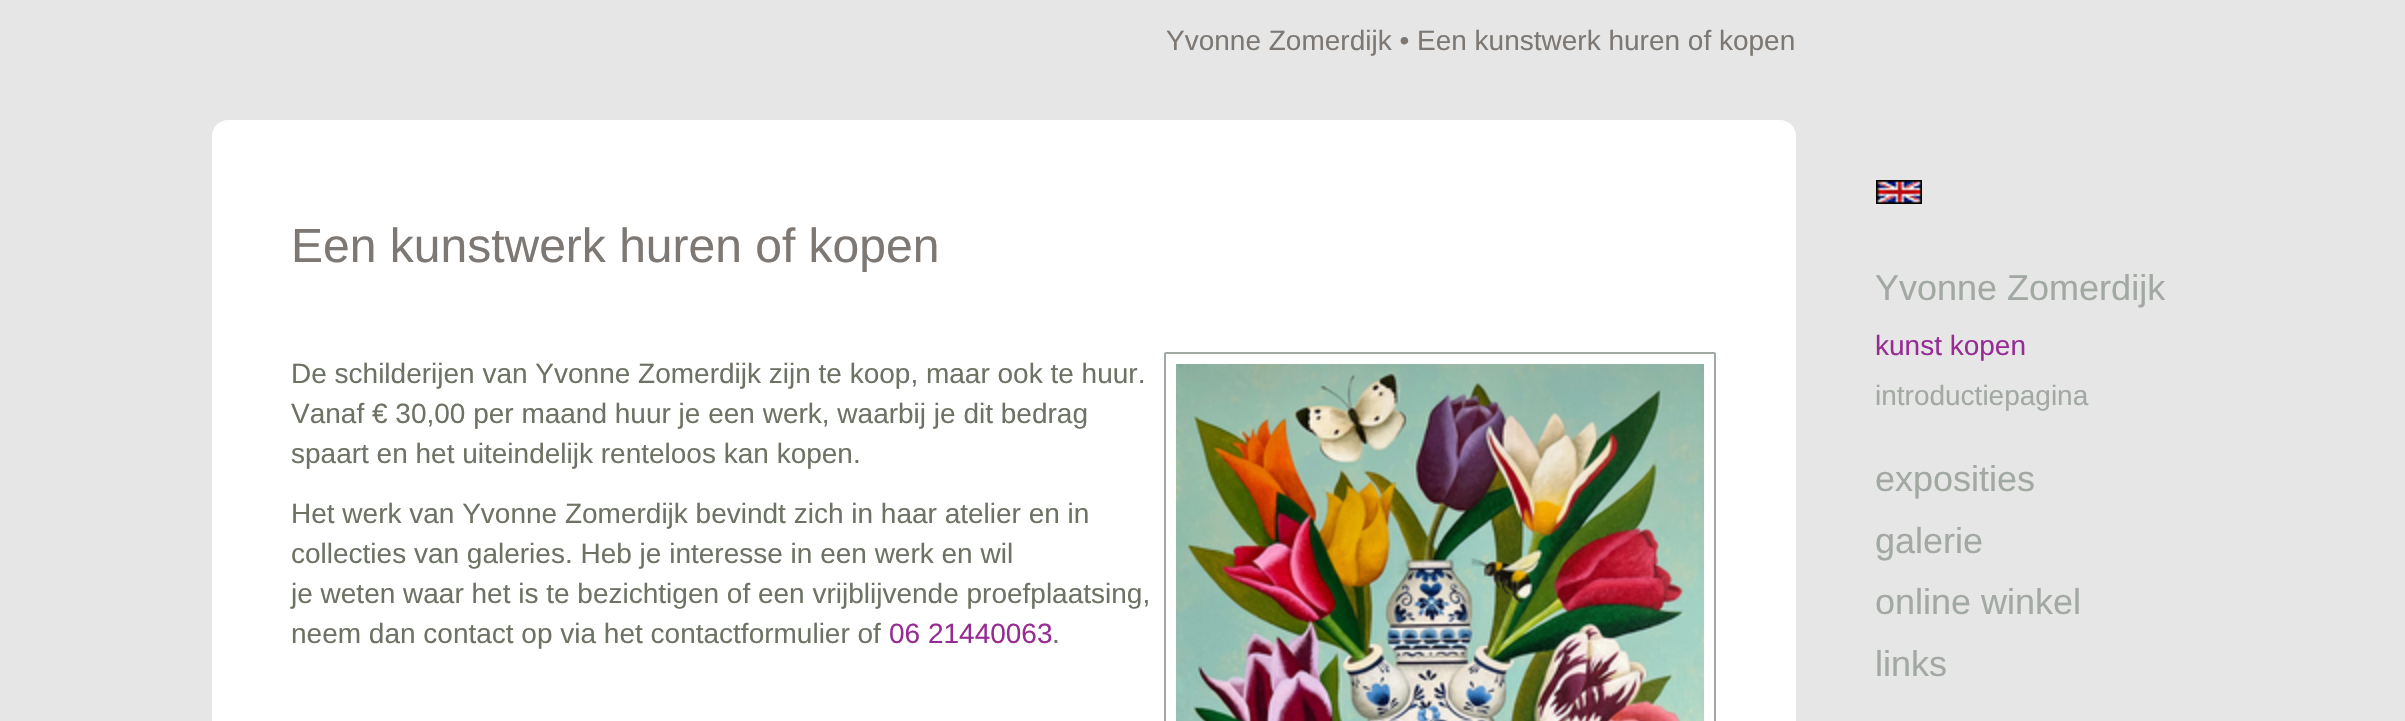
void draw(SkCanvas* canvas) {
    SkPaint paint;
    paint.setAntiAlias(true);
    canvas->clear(0xFFE6E6E6);
    SkFont font1(fontMgr->matchFamilyStyle("Liberation Sans", SkFontStyle::Normal()), 28);
    font1.setSubpixel(true);
    paint.setColor(0xFF7D7873);
    canvas->drawString("Yvonne Zomerdijk • Een kunstwerk huren of kopen", 1166, 50, font1, paint);
    paint.setColor(0xFFFFFFFF);
    canvas->drawRoundRect(SkRect::MakeXYWH(212, 120, 1584, 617), 16, 16, paint);
    SkFont font2(fontMgr->matchFamilyStyle("Liberation Sans", SkFontStyle::Normal()), 48);
    font2.setSubpixel(true);
    paint.setColor(0xFF7D7873);
    canvas->drawString("Een kunstwerk huren of kopen", 291, 262, font2, paint);
    paint.setColor(0xFF6D7364);
    canvas->drawString("De schilderijen van Yvonne Zomerdijk zijn te koop, maar ook te huur.", 291, 383, font1, paint);
    canvas->drawString("Vanaf € 30,00 per maand huur je een werk, waarbij je dit bedrag", 291, 423, font1, paint);
    canvas->drawString("spaart en het uiteindelijk renteloos kan kopen.", 291, 463, font1, paint);
    canvas->drawString("Het werk van Yvonne Zomerdijk bevindt zich in haar atelier en in", 291, 523, font1, paint);
    canvas->drawString("collecties van galeries. Heb je interesse in een werk en wil", 291, 563, font1, paint);
    canvas->drawString("je weten waar het is te bezichtigen of een vrijblijvende proefplaatsing,", 291, 603, font1, paint);
    canvas->drawString("neem dan contact op via het contactformulier of", 291, 643, font1, paint);
    paint.setColor(0xFF962C93);
    canvas->drawString("06 21440063", 889, 643, font1, paint);
    paint.setColor(0xFF6D7364);
    canvas->drawString(".", 1052, 643, font1, paint);
    paint.setStyle(SkPaint::kStroke_Style);
    paint.setStrokeWidth(2);
    paint.setColor(0xFFA2A9A2);
    canvas->drawRoundRect(SkRect::MakeXYWH(1165, 353, 550, 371), 1, 1, paint);
    canvas->drawImageRect(SkImages::DeferredFromEncodedData(SkData::MakeFromFileName("img1.png")), SkRect::MakeXYWH(1176, 364, 528, 357), SkSamplingOptions());
    canvas->drawImageRect(SkImages::DeferredFromEncodedData(SkData::MakeFromFileName("img2.png")), SkRect::MakeXYWH(1876, 180, 46, 24), SkSamplingOptions());
    SkFont font3(fontMgr->matchFamilyStyle("Liberation Sans", SkFontStyle::Normal()), 36);
    font3.setSubpixel(true);
    paint.setStyle(SkPaint::kFill_Style);
    canvas->drawString("Yvonne Zomerdijk", 1875, 300, font3, paint);
    paint.setColor(0xFF962C93);
    canvas->drawString("kunst kopen", 1875, 355, font1, paint);
    paint.setColor(0xFFA2A9A2);
    canvas->drawString("introductiepagina", 1875, 405, font1, paint);
    canvas->drawString("exposities", 1875, 491, font3, paint);
    canvas->drawString("galerie", 1875, 553, font3, paint);
    canvas->drawString("online winkel", 1875, 614, font3, paint);
    canvas->drawString("links", 1875, 676, font3, paint);
}
